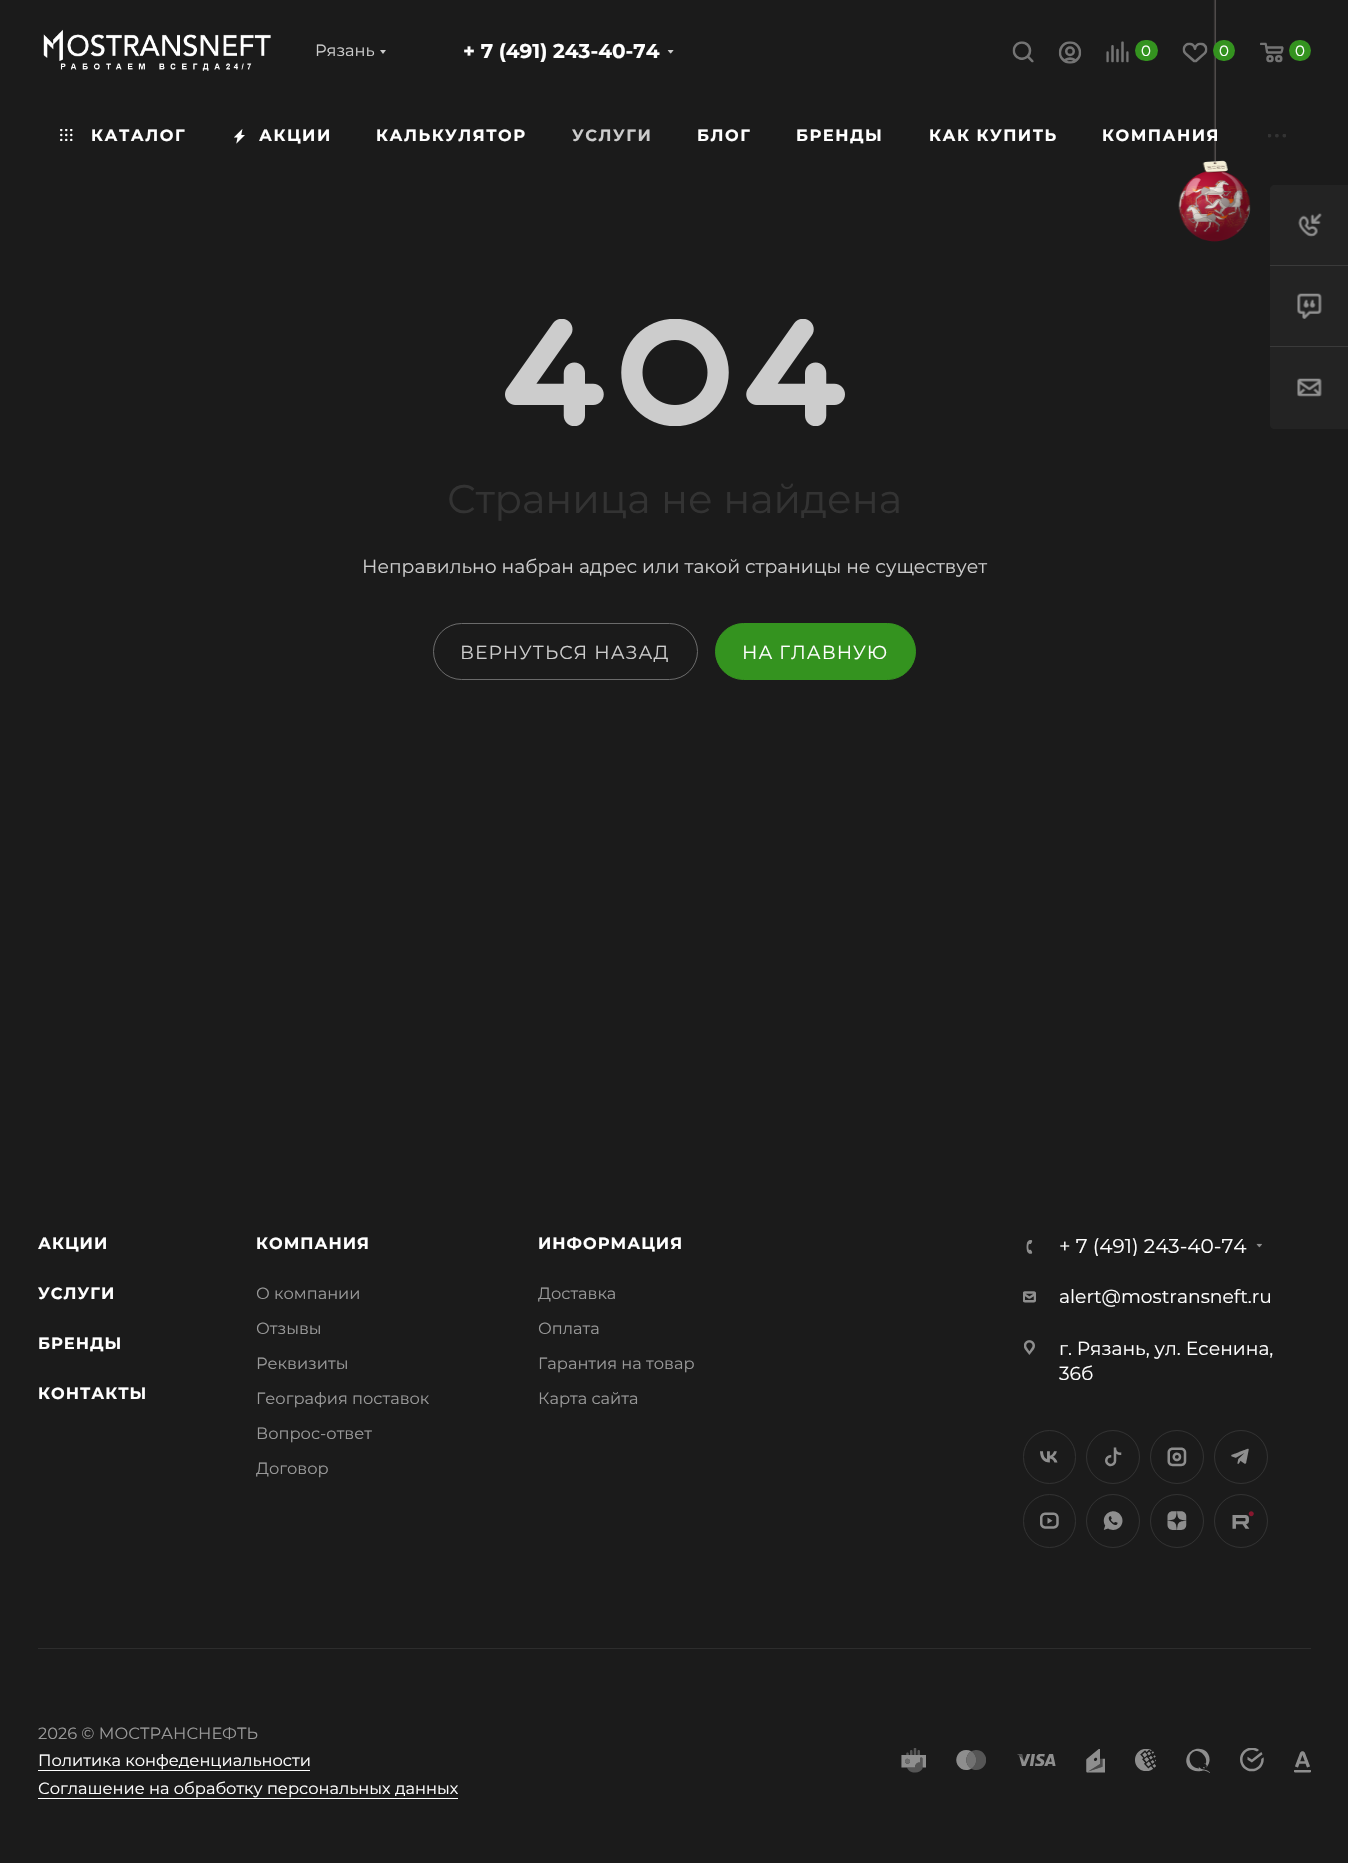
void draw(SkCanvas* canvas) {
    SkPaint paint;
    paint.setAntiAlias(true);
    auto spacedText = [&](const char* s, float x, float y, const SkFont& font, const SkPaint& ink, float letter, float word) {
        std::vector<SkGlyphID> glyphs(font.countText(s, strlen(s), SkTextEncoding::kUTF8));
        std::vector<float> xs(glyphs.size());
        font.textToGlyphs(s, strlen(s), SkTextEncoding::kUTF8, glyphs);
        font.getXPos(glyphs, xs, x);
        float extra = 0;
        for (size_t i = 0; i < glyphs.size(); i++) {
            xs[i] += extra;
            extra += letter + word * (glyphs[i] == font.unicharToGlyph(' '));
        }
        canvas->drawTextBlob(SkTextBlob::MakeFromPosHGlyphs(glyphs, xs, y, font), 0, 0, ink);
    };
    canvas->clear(0xFF1B1B1B);
    canvas->drawImageRect(SkImages::DeferredFromEncodedData(SkData::MakeFromFileName("img1.png")), SkRect::MakeXYWH(1178, 0, 73, 242), SkSamplingOptions());
    canvas->drawImageRect(SkImages::DeferredFromEncodedData(SkData::MakeFromFileName("img2.png")), SkRect::MakeXYWH(43, 29, 228, 42), SkSamplingOptions());
    SkFont font1(fontMgr->matchFamilyStyle("Montserrat", SkFontStyle::Normal()), 16.25f);
    font1.setSubpixel(true);
    paint.setColor(0xFFCCCCCC);
    canvas->drawString("Рязань", 315, 56, font1, paint);
    canvas->drawPath(SkPathBuilder(SkPathFillType::kEvenOdd).moveTo(380, 50).lineTo(386, 50).lineTo(383, 54).close().detach(), paint);
    SkFont font2(fontMgr->matchFamilyStyle("Montserrat", SkFontStyle::Bold()), 20);
    font2.setSubpixel(true);
    paint.setColor(0xFFFFFFFF);
    canvas->drawString("+ 7 (491) 243-40-74", 463, 58, font2, paint);
    canvas->drawImageRect(SkImages::DeferredFromEncodedData(SkData::MakeFromFileName("img3.png")), SkRect::MakeXYWH(667, 50, 7, 4), SkSamplingOptions());
    canvas->drawImageRect(SkImages::DeferredFromEncodedData(SkData::MakeFromFileName("img4.png")), SkRect::MakeXYWH(1012, 41, 22, 22), SkSamplingOptions());
    canvas->drawImageRect(SkImages::DeferredFromEncodedData(SkData::MakeFromFileName("img5.png")), SkRect::MakeXYWH(1058, 41, 24, 23), SkSamplingOptions());
    canvas->drawImageRect(SkImages::DeferredFromEncodedData(SkData::MakeFromFileName("img6.png")), SkRect::MakeXYWH(1106, 41, 23, 22), SkSamplingOptions());
    paint.setColor(0xFF34931F);
    canvas->drawRoundRect(SkRect::MakeXYWH(1135, 40, 23, 21), 10.5f, 10.5f, paint);
    SkFont font3(fontMgr->matchFamilyStyle("Montserrat", SkFontStyle::Normal()), 15);
    font3.setSubpixel(true);
    paint.setColor(0xFFFFFFFF);
    canvas->drawString("0", 1141, 56, font3, paint);
    canvas->drawImageRect(SkImages::DeferredFromEncodedData(SkData::MakeFromFileName("img7.png")), SkRect::MakeXYWH(1182, 42, 26, 21), SkSamplingOptions());
    paint.setColor(0xFF34931F);
    canvas->drawRoundRect(SkRect::MakeXYWH(1213, 40, 22, 21), 10.5f, 10.5f, paint);
    paint.setColor(0xFFFFFFFF);
    canvas->drawString("0", 1219, 56, font3, paint);
    canvas->drawImageRect(SkImages::DeferredFromEncodedData(SkData::MakeFromFileName("img8.png")), SkRect::MakeXYWH(1260, 42, 24, 21), SkSamplingOptions());
    paint.setColor(0xFF34931F);
    canvas->drawRoundRect(SkRect::MakeXYWH(1289, 40, 22, 21), 10.5f, 10.5f, paint);
    paint.setColor(0xFFFFFFFF);
    canvas->drawString("0", 1295, 56, font3, paint);
    canvas->drawImageRect(SkImages::DeferredFromEncodedData(SkData::MakeFromFileName("img9.png")), SkRect::MakeXYWH(60, 129, 13, 12), SkSamplingOptions());
    SkFont font4(fontMgr->matchFamilyStyle("Montserrat", SkFontStyle::Bold()), 16.25f);
    font4.setSubpixel(true);
    spacedText("КАТАЛОГ", 91, 141, font4, paint, 1.5f, 0);
    canvas->drawImageRect(SkImages::DeferredFromEncodedData(SkData::MakeFromFileName("img10.png")), SkRect::MakeXYWH(234, 129, 11, 15), SkSamplingOptions());
    spacedText("АКЦИИ", 259, 141, font4, paint, 1.5f, 0);
    spacedText("КАЛЬКУЛЯТОР", 376, 141, font4, paint, 1.5f, 0);
    paint.setColor(0xFFCCCCCC);
    spacedText("УСЛУГИ", 572, 141, font4, paint, 1.5f, 0);
    paint.setColor(0xFFFFFFFF);
    spacedText("БЛОГ", 697, 141, font4, paint, 1.5f, 0);
    spacedText("БРЕНДЫ", 796, 141, font4, paint, 1.5f, 0);
    spacedText("КАК КУПИТЬ", 929, 141, font4, paint, 1.5f, 0);
    spacedText("КОМПАНИЯ", 1102, 141, font4, paint, 1.5f, 0);
    canvas->drawImageRect(SkImages::DeferredFromEncodedData(SkData::MakeFromFileName("img11.png")), SkRect::MakeXYWH(1268, 134, 18, 4), SkSamplingOptions());
    canvas->drawImageRect(SkImages::DeferredFromEncodedData(SkData::MakeFromFileName("img12.png")), SkRect::MakeXYWH(505, 319, 340, 107), SkSamplingOptions());
    SkFont font5(fontMgr->matchFamilyStyle("Montserrat", SkFontStyle::Normal()), 40);
    font5.setSubpixel(true);
    paint.setColor(0xFF333333);
    canvas->drawString("Страница не найдена", 447, 513, font5, paint);
    SkFont font6(fontMgr->matchFamilyStyle("Montserrat", SkFontStyle::Normal()), 18.75f);
    font6.setSubpixel(true);
    paint.setColor(0xFFCCCCCC);
    canvas->drawString("Неправильно набран адрес или такой страницы не существует", 362, 573, font6, paint);
    paint.setStyle(SkPaint::kStroke_Style);
    paint.setStrokeWidth(1);
    paint.setColor(0xFF6B6B6B);
    canvas->drawRoundRect(SkRect::MakeXYWH(433.5f, 623.5f, 264, 56), 28, 28, paint);
    paint.setStyle(SkPaint::kFill_Style);
    paint.setColor(0xFFCCCCCC);
    spacedText("ВЕРНУТЬСЯ НАЗАД", 460, 659, font6, paint, 1, 0);
    paint.setColor(0xFF34931F);
    canvas->drawRoundRect(SkRect::MakeXYWH(715.5f, 623.5f, 200, 56), 28, 28, paint);
    paint.setStyle(SkPaint::kStroke_Style);
    canvas->drawRoundRect(SkRect::MakeXYWH(715.5f, 623.5f, 200, 56), 28, 28, paint);
    paint.setStyle(SkPaint::kFill_Style);
    paint.setColor(0xFFFFFFFF);
    spacedText("НА ГЛАВНУЮ", 742, 659, font6, paint, 1, 0);
    paint.setColor(0xFF232323);
    canvas->drawPath(SkPathBuilder().moveTo(1275, 185).lineTo(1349, 185).lineTo(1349, 429).lineTo(1275, 429).cubicTo(1272, 429, 1270, 427, 1270, 424).lineTo(1270, 190).cubicTo(1270, 187, 1272, 185, 1275, 185).close().detach(), paint);
    paint.setColor(0xFF3A3A3A);
    canvas->drawRect(SkRect::MakeXYWH(1270, 265, 78, 1), paint);
    canvas->drawImageRect(SkImages::DeferredFromEncodedData(SkData::MakeFromFileName("img13.png")), SkRect::MakeXYWH(1298, 213, 24, 24), SkSamplingOptions());
    canvas->drawRect(SkRect::MakeXYWH(1270, 346, 78, 1), paint);
    canvas->drawImageRect(SkImages::DeferredFromEncodedData(SkData::MakeFromFileName("img14.png")), SkRect::MakeXYWH(1297, 293, 25, 26), SkSamplingOptions());
    canvas->drawImageRect(SkImages::DeferredFromEncodedData(SkData::MakeFromFileName("img15.png")), SkRect::MakeXYWH(1297, 378, 25, 19), SkSamplingOptions());
    paint.setColor(0xFFFFFFFF);
    spacedText("АКЦИИ", 38, 1249, font4, paint, 1, 0);
    spacedText("УСЛУГИ", 38, 1299, font4, paint, 1, 0);
    spacedText("БРЕНДЫ", 38, 1349, font4, paint, 1, 0);
    spacedText("КОНТАКТЫ", 38, 1399, font4, paint, 1, 0);
    spacedText("КОМПАНИЯ", 256, 1249, font4, paint, 1, 0);
    paint.setColor(0xFF999999);
    canvas->drawString("О компании", 256, 1299, font1, paint);
    canvas->drawString("Отзывы", 256, 1334, font1, paint);
    canvas->drawString("Реквизиты", 256, 1369, font1, paint);
    canvas->drawString("География поставок", 256, 1404, font1, paint);
    canvas->drawString("Вопрос-ответ", 256, 1439, font1, paint);
    canvas->drawString("Договор", 256, 1474, font1, paint);
    paint.setColor(0xFFFFFFFF);
    spacedText("ИНФОРМАЦИЯ", 538, 1249, font4, paint, 1, 0);
    paint.setColor(0xFF999999);
    canvas->drawString("Доставка", 538, 1299, font1, paint);
    canvas->drawString("Оплата", 538, 1334, font1, paint);
    canvas->drawString("Гарантия на товар", 538, 1369, font1, paint);
    canvas->drawString("Карта сайта", 538, 1404, font1, paint);
    canvas->drawImageRect(SkImages::DeferredFromEncodedData(SkData::MakeFromFileName("img16.png")), SkRect::MakeXYWH(1026, 1240, 7, 14), SkSamplingOptions());
    canvas->save();
    canvas->clipRect(SkRect::MakeXYWH(1023, 1236, 240, 20));
    SkFont font7(fontMgr->matchFamilyStyle("Montserrat", SkFontStyle::Normal()), 20);
    font7.setSubpixel(true);
    paint.setColor(0xFFFFFFFF);
    canvas->drawString("+ 7 (491) 243-40-74", 1059, 1253, font7, paint);
    canvas->restore();
    canvas->drawImageRect(SkImages::DeferredFromEncodedData(SkData::MakeFromFileName("img17.png")), SkRect::MakeXYWH(1256, 1243, 6, 5), SkSamplingOptions());
    canvas->drawImageRect(SkImages::DeferredFromEncodedData(SkData::MakeFromFileName("img18.png")), SkRect::MakeXYWH(1023, 1291, 13, 12), SkSamplingOptions());
    canvas->drawString("alert@mostransneft.ru", 1059, 1303, font6, paint);
    canvas->drawImageRect(SkImages::DeferredFromEncodedData(SkData::MakeFromFileName("img19.png")), SkRect::MakeXYWH(1024, 1340, 11, 15), SkSamplingOptions());
    canvas->drawString("г. Рязань, ул. Есенина,", 1059, 1355, font6, paint);
    canvas->drawString("36б", 1059, 1380, font6, paint);
    canvas->drawImageRect(SkImages::DeferredFromEncodedData(SkData::MakeFromFileName("img20.png")), SkRect::MakeXYWH(1040, 1451, 18, 12), SkSamplingOptions());
    paint.setStyle(SkPaint::kStroke_Style);
    paint.setColor(0xFF323232);
    canvas->drawRoundRect(SkRect::MakeXYWH(1023.5f, 1430.5f, 52, 53), 26, 26, paint);
    canvas->drawImageRect(SkImages::DeferredFromEncodedData(SkData::MakeFromFileName("img21.png")), SkRect::MakeXYWH(1105, 1447, 17, 20), SkSamplingOptions());
    canvas->drawCircle(1113, 1457, 26.5f, paint);
    canvas->drawImageRect(SkImages::DeferredFromEncodedData(SkData::MakeFromFileName("img22.png")), SkRect::MakeXYWH(1167, 1447, 20, 20), SkSamplingOptions());
    canvas->drawCircle(1177, 1457, 26.5f, paint);
    canvas->drawImageRect(SkImages::DeferredFromEncodedData(SkData::MakeFromFileName("img23.png")), SkRect::MakeXYWH(1231, 1448, 18, 16), SkSamplingOptions());
    canvas->drawCircle(1241, 1457, 26.5f, paint);
    canvas->drawImageRect(SkImages::DeferredFromEncodedData(SkData::MakeFromFileName("img24.png")), SkRect::MakeXYWH(1040, 1512, 19, 17), SkSamplingOptions());
    canvas->drawRoundRect(SkRect::MakeXYWH(1023.5f, 1494.5f, 52, 53), 26, 26, paint);
    canvas->drawImageRect(SkImages::DeferredFromEncodedData(SkData::MakeFromFileName("img25.png")), SkRect::MakeXYWH(1103, 1511, 20, 19), SkSamplingOptions());
    canvas->drawCircle(1113, 1521, 26.5f, paint);
    canvas->drawImageRect(SkImages::DeferredFromEncodedData(SkData::MakeFromFileName("img26.png")), SkRect::MakeXYWH(1167, 1511, 20, 19), SkSamplingOptions());
    canvas->drawCircle(1177, 1521, 26.5f, paint);
    canvas->drawImageRect(SkImages::DeferredFromEncodedData(SkData::MakeFromFileName("img27.png")), SkRect::MakeXYWH(1232, 1511, 22, 18), SkSamplingOptions());
    canvas->drawCircle(1241, 1521, 26.5f, paint);
    paint.setStyle(SkPaint::kFill_Style);
    paint.setColor(0xFF2D2D2D);
    canvas->drawRect(SkRect::MakeXYWH(38, 1648, 1273, 1), paint);
    paint.setColor(0xFF999999);
    canvas->drawString("2026 © МОСТРАНСНЕФТЬ", 38, 1739, font1, paint);
    paint.setColor(0xFFFFFFFF);
    canvas->drawString("Политика конфеденциальности", 38, 1766, font1, paint);
    canvas->drawRect(SkRect::MakeXYWH(38, 1770, 272, 1), paint);
    canvas->drawString("Соглашение на обработку персональных данных", 38, 1794, font1, paint);
    canvas->drawRect(SkRect::MakeXYWH(38, 1798, 420, 1), paint);
    canvas->drawImageRect(SkImages::DeferredFromEncodedData(SkData::MakeFromFileName("img28.png")), SkRect::MakeXYWH(901, 1748, 25, 25), SkSamplingOptions());
    canvas->drawImageRect(SkImages::DeferredFromEncodedData(SkData::MakeFromFileName("img29.png")), SkRect::MakeXYWH(956, 1750, 30, 20), SkSamplingOptions());
    canvas->drawImageRect(SkImages::DeferredFromEncodedData(SkData::MakeFromFileName("img30.png")), SkRect::MakeXYWH(1017, 1754, 39, 12), SkSamplingOptions());
    canvas->drawImageRect(SkImages::DeferredFromEncodedData(SkData::MakeFromFileName("img31.png")), SkRect::MakeXYWH(1086, 1749, 19, 24), SkSamplingOptions());
    canvas->drawImageRect(SkImages::DeferredFromEncodedData(SkData::MakeFromFileName("img32.png")), SkRect::MakeXYWH(1135, 1749, 21, 22), SkSamplingOptions());
    canvas->drawImageRect(SkImages::DeferredFromEncodedData(SkData::MakeFromFileName("img33.png")), SkRect::MakeXYWH(1186, 1748, 24, 25), SkSamplingOptions());
    canvas->drawImageRect(SkImages::DeferredFromEncodedData(SkData::MakeFromFileName("img34.png")), SkRect::MakeXYWH(1240, 1748, 24, 24), SkSamplingOptions());
    canvas->drawImageRect(SkImages::DeferredFromEncodedData(SkData::MakeFromFileName("img35.png")), SkRect::MakeXYWH(1294, 1751, 17, 22), SkSamplingOptions());
}
